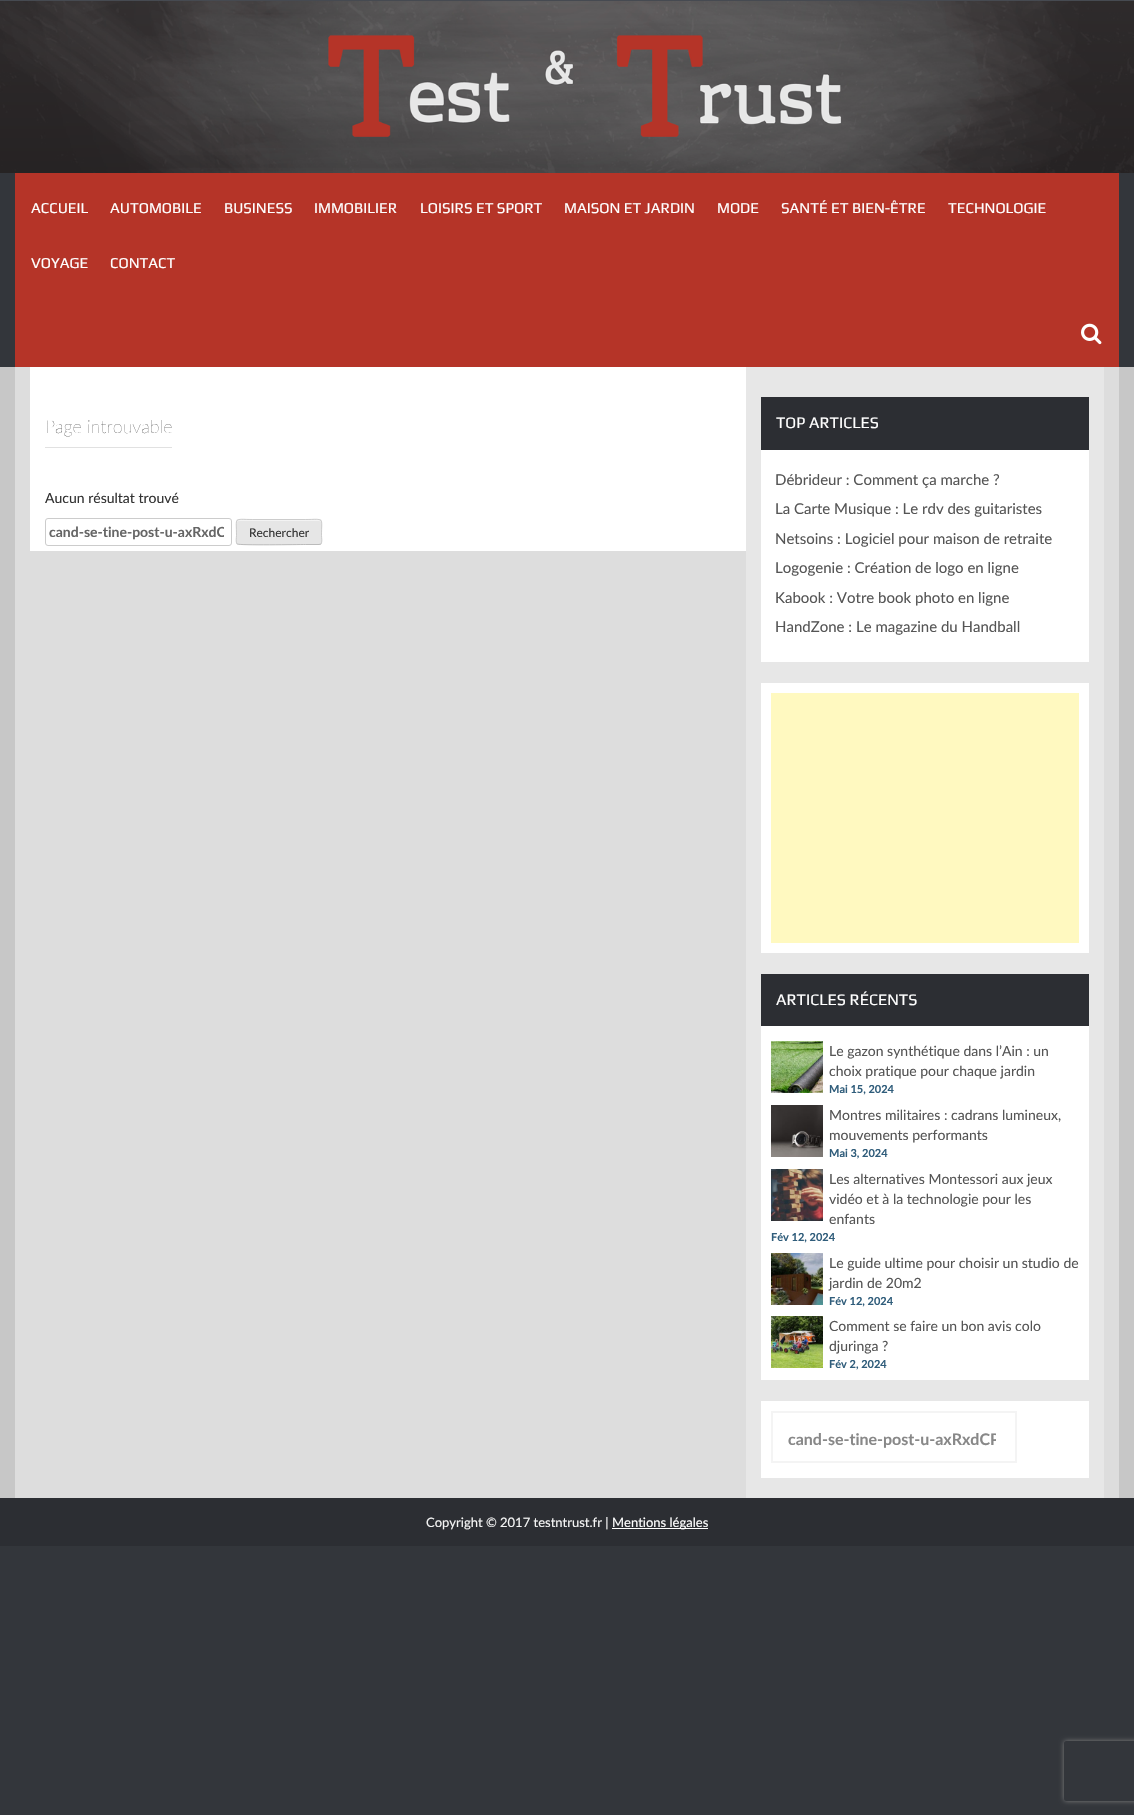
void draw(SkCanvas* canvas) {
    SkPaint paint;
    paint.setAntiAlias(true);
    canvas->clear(0xFF33363B);
    paint.setColor(0xFF464A51);
    canvas->drawRect(SkRect::MakeXYWH(0, 0, 1134, 1), paint);
    canvas->drawImageRect(SkImages::DeferredFromEncodedData(SkData::MakeFromFileName("img1.png")), SkRect::MakeXYWH(0, 1, 1134, 172), SkSamplingOptions());
    paint.setColor(0xFFB53428);
    canvas->drawRect(SkRect::MakeXYWH(15, 173, 1104, 194), paint);
    SkFont font1(fontMgr->matchFamilyStyle("Play", SkFontStyle::Normal()), 15);
    font1.setSubpixel(true);
    paint.setColor(0xFFFFFFFF);
    canvas->drawString("ACCUEIL", 31, 213, font1, paint);
    canvas->drawString("AUTOMOBILE", 110, 213, font1, paint);
    canvas->drawString("BUSINESS", 224, 213, font1, paint);
    canvas->drawString("IMMOBILIER", 314, 213, font1, paint);
    canvas->drawString("LOISIRS ET SPORT", 420, 213, font1, paint);
    canvas->drawString("MAISON ET JARDIN", 564, 213, font1, paint);
    canvas->drawString("MODE", 717, 213, font1, paint);
    canvas->drawString("SANTÉ ET BIEN-ÊTRE", 781, 213, font1, paint);
    canvas->drawString("TECHNOLOGIE", 948, 213, font1, paint);
    canvas->drawString("VOYAGE", 31, 268, font1, paint);
    canvas->drawString("CONTACT", 110, 268, font1, paint);
    canvas->drawImageRect(SkImages::DeferredFromEncodedData(SkData::MakeFromFileName("img2.png")), SkRect::MakeXYWH(1081, 323, 21, 22), SkSamplingOptions());
    paint.setColor(0xFFDDDDDD);
    canvas->drawRect(SkRect::MakeXYWH(15, 367, 1104, 1131), paint);
    paint.setColor(0xFFC7C7C7);
    canvas->drawRect(SkRect::MakeXYWH(1119, 367, 15, 1131), paint);
    canvas->drawRect(SkRect::MakeXYWH(0, 367, 15, 1131), paint);
    paint.setColor(0xFFFFFFFF);
    canvas->drawRect(SkRect::MakeXYWH(30, 367, 716, 184), paint);
    paint.setColor(0xFFE1E1E1);
    canvas->drawRect(SkRect::MakeXYWH(45, 447, 127, 1), paint);
    SkFont font2(fontMgr->matchFamilyStyle("Lato", SkFontStyle(200, SkFontStyle::kNormal_Width, SkFontStyle::kUpright_Slant)), 18);
    font2.setSubpixel(true);
    paint.setColor(0xFF333333);
    canvas->drawString("Page introuvable", 45, 433, font2, paint);
    SkFont font3(fontMgr->matchFamilyStyle("Lato", SkFontStyle::Normal()), 14);
    font3.setSubpixel(true);
    canvas->drawString("Aucun résultat trouvé", 45, 503, font3, paint);
    paint.setStyle(SkPaint::kStroke_Style);
    paint.setStrokeWidth(1);
    paint.setColor(0xFFCCCCCC);
    canvas->drawRoundRect(SkRect::MakeXYWH(45.5f, 518.5f, 186, 27), 2.5f, 2.5f, paint);
    canvas->save();
    canvas->clipRect(SkRect::MakeXYWH(49, 522, 175, 20));
    SkFont font4(fontMgr->matchFamilyStyle("Lato", SkFontStyle::Bold()), 14);
    font4.setSubpixel(true);
    paint.setStyle(SkPaint::kFill_Style);
    paint.setColor(0xFF666666);
    canvas->drawString("cand-se-tine-post-u-axRxdC", 49, 537, font4, paint);
    canvas->restore();
    paint.setColor(0xFFE6E6E6);
    canvas->drawRoundRect(SkRect::MakeXYWH(236, 519, 86, 26), 3, 3, paint);
    paint.setColor(0xFFF3F3F3);
    canvas->drawPath(SkPathBuilder().moveTo(239, 521).lineTo(319, 521).cubicTo(320, 521, 321, 522, 321, 523).cubicTo(321, 516, 308, 520, 306, 520).lineTo(252, 520).cubicTo(250, 520, 237, 516, 237, 523).cubicTo(237, 522, 238, 521, 239, 521).close().detach(), paint);
    paint.setStyle(SkPaint::kStroke_Style);
    paint.setColor(0xFFBBBBBB);
    canvas->drawPath(SkPathBuilder().moveTo(321, 544).lineTo(319, 544.5f).lineTo(305.5f, 544.5f).cubicTo(298.5f, 544.5f, 239.5f, 545.5f, 237.5f, 544).lineTo(237, 544).detach(), paint);
    paint.setColor(0xFFCCCCCC);
    canvas->drawPath(SkPathBuilder().moveTo(237, 544).cubicTo(235.5f, 542, 236.5f, 537.5f, 236.5f, 535.5f).cubicTo(236.5f, 516.5f, 233, 519.5f, 252.5f, 519.5f).lineTo(305.5f, 519.5f).cubicTo(325, 519.5f, 321.5f, 516.5f, 321.5f, 535.5f).cubicTo(321.5f, 537.5f, 322.5f, 542, 321, 544).detach(), paint);
    SkFont font5(fontMgr->matchFamilyStyle("Lato", SkFontStyle::Normal()), 12);
    font5.setSubpixel(true);
    paint.setStyle(SkPaint::kFill_Style);
    paint.setColor(0xFF333333);
    canvas->drawString("Rechercher", 249, 537, font5, paint);
    paint.setColor(0xFFE7E7E7);
    canvas->drawRect(SkRect::MakeXYWH(746, 367, 358, 1131), paint);
    paint.setColor(0xFFFFFFFF);
    canvas->drawRect(SkRect::MakeXYWH(761, 450, 328, 212), paint);
    paint.setColor(0xFF2C2E33);
    canvas->drawRect(SkRect::MakeXYWH(761, 397, 328, 53), paint);
    SkFont font6(fontMgr->matchFamilyStyle("Play", SkFontStyle::Normal()), 16);
    font6.setSubpixel(true);
    paint.setColor(0xFFFFFFFF);
    canvas->drawString("TOP ARTICLES", 776, 428, font6, paint);
    SkFont font7(fontMgr->matchFamilyStyle("Lato", SkFontStyle::Normal()), 15);
    font7.setSubpixel(true);
    paint.setColor(0xFF555555);
    canvas->drawString("Débrideur : Comment ça marche ?", 775, 485, font7, paint);
    canvas->drawString("La Carte Musique : Le rdv des guitaristes", 775, 514, font7, paint);
    canvas->drawString("Netsoins : Logiciel pour maison de retraite", 775, 544, font7, paint);
    canvas->drawString("Logogenie : Création de logo en ligne", 775, 573, font7, paint);
    canvas->drawString("Kabook : Votre book photo en ligne", 775, 603, font7, paint);
    canvas->drawString("HandZone : Le magazine du Handball", 775, 632, font7, paint);
    paint.setColor(0xFFFFFFFF);
    canvas->drawRect(SkRect::MakeXYWH(761, 683, 328, 270), paint);
    paint.setColor(0xFFFFF9C0);
    canvas->drawRect(SkRect::MakeXYWH(771, 693, 308, 250), paint);
    paint.setColor(0xFFFFFFFF);
    canvas->drawRect(SkRect::MakeXYWH(761, 1026, 328, 354), paint);
    paint.setColor(0xFF2C2E33);
    canvas->drawRect(SkRect::MakeXYWH(761, 974, 328, 52), paint);
    paint.setColor(0xFFFFFFFF);
    canvas->drawString("ARTICLES RÉCENTS", 776, 1005, font6, paint);
    canvas->drawImageRect(SkImages::DeferredFromEncodedData(SkData::MakeFromFileName("img3.png")), SkRect::MakeXYWH(771, 1041, 52, 52), SkSamplingOptions());
    paint.setColor(0xFF555555);
    canvas->drawString("Le gazon synthétique dans l’Ain : un", 829, 1056, font3, paint);
    canvas->drawString("choix pratique pour chaque jardin", 829, 1076, font3, paint);
    SkFont font8(fontMgr->matchFamilyStyle("Lato", SkFontStyle::Bold()), 11);
    font8.setSubpixel(true);
    paint.setColor(0xFF305D7B);
    canvas->drawString("Mai 15, 2024", 829, 1093, font8, paint);
    canvas->drawImageRect(SkImages::DeferredFromEncodedData(SkData::MakeFromFileName("img4.png")), SkRect::MakeXYWH(771, 1105, 52, 52), SkSamplingOptions());
    paint.setColor(0xFF555555);
    canvas->drawString("Montres militaires : cadrans lumineux,", 829, 1120, font3, paint);
    canvas->drawString("mouvements performants", 829, 1140, font3, paint);
    paint.setColor(0xFF305D7B);
    canvas->drawString("Mai 3, 2024", 829, 1157, font8, paint);
    canvas->drawImageRect(SkImages::DeferredFromEncodedData(SkData::MakeFromFileName("img5.png")), SkRect::MakeXYWH(771, 1169, 52, 52), SkSamplingOptions());
    paint.setColor(0xFF555555);
    canvas->drawString("Les alternatives Montessori aux jeux", 829, 1184, font3, paint);
    canvas->drawString("vidéo et à la technologie pour les", 829, 1204, font3, paint);
    canvas->drawString("enfants", 829, 1224, font3, paint);
    paint.setColor(0xFF305D7B);
    canvas->drawString("Fév 12, 2024", 771, 1241, font8, paint);
    canvas->drawImageRect(SkImages::DeferredFromEncodedData(SkData::MakeFromFileName("img6.png")), SkRect::MakeXYWH(771, 1253, 52, 52), SkSamplingOptions());
    paint.setColor(0xFF555555);
    canvas->drawString("Le guide ultime pour choisir un studio de", 829, 1268, font3, paint);
    canvas->drawString("jardin de 20m2", 829, 1288, font3, paint);
    paint.setColor(0xFF305D7B);
    canvas->drawString("Fév 12, 2024", 829, 1305, font8, paint);
    canvas->drawImageRect(SkImages::DeferredFromEncodedData(SkData::MakeFromFileName("img7.png")), SkRect::MakeXYWH(771, 1316, 52, 52), SkSamplingOptions());
    paint.setColor(0xFF555555);
    canvas->drawString("Comment se faire un bon avis colo", 829, 1331, font3, paint);
    canvas->drawString("djuringa ?", 829, 1351, font3, paint);
    paint.setColor(0xFF305D7B);
    canvas->drawString("Fév 2, 2024", 829, 1368, font8, paint);
    paint.setColor(0xFFFFFFFF);
    canvas->drawRect(SkRect::MakeXYWH(761, 1401, 328, 77), paint);
    paint.setStyle(SkPaint::kStroke_Style);
    paint.setStrokeWidth(2);
    paint.setColor(0xFFF4F4F4);
    canvas->drawRect(SkRect::MakeXYWH(772, 1412, 244, 50), paint);
    canvas->save();
    canvas->clipRect(SkRect::MakeXYWH(788, 1428, 208, 23));
    SkFont font9(fontMgr->matchFamilyStyle("Lato", SkFontStyle::Bold()), 16);
    font9.setSubpixel(true);
    paint.setStyle(SkPaint::kFill_Style);
    paint.setColor(0xFF888888);
    canvas->drawString("cand-se-tine-post-u-axRxdCP", 788, 1445, font9, paint);
    canvas->restore();
    paint.setColor(0xFF2C2E33);
    canvas->drawRect(SkRect::MakeXYWH(0, 1498, 1134, 48), paint);
    SkFont font10(fontMgr->matchFamilyStyle("Lato", SkFontStyle::Normal()), 13);
    font10.setSubpixel(true);
    paint.setColor(0xFFF5F5F5);
    canvas->drawString("Copyright © 2017 testntrust.fr |", 426, 1527, font10, paint);
    paint.setColor(0xFFFFFFFF);
    canvas->drawRect(SkRect::MakeXYWH(612, 1528, 96, 1), paint);
    canvas->drawString("Mentions légales", 612, 1527, font10, paint);
    canvas->save();
    canvas->clipPath(SkPathBuilder(SkPathFillType::kEvenOdd).moveTo(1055, 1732).lineTo(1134, 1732).lineTo(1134, 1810).lineTo(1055, 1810).close().moveTo(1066, 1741).lineTo(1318, 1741).cubicTo(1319, 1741, 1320, 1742, 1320, 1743).lineTo(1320, 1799).cubicTo(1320, 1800, 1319, 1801, 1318, 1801).lineTo(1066, 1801).cubicTo(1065, 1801, 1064, 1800, 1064, 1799).lineTo(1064, 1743).cubicTo(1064, 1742, 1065, 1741, 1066, 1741).close().detach(), true);
    paint.setColor(0xFF808080);
    paint.setMaskFilter(SkMaskFilter::MakeBlur(kNormal_SkBlurStyle, 2.5f));
    canvas->drawRoundRect(SkRect::MakeXYWH(1064, 1741, 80, 60), 2, 2, paint);
    paint.setMaskFilter(nullptr);
    canvas->restore();
}
